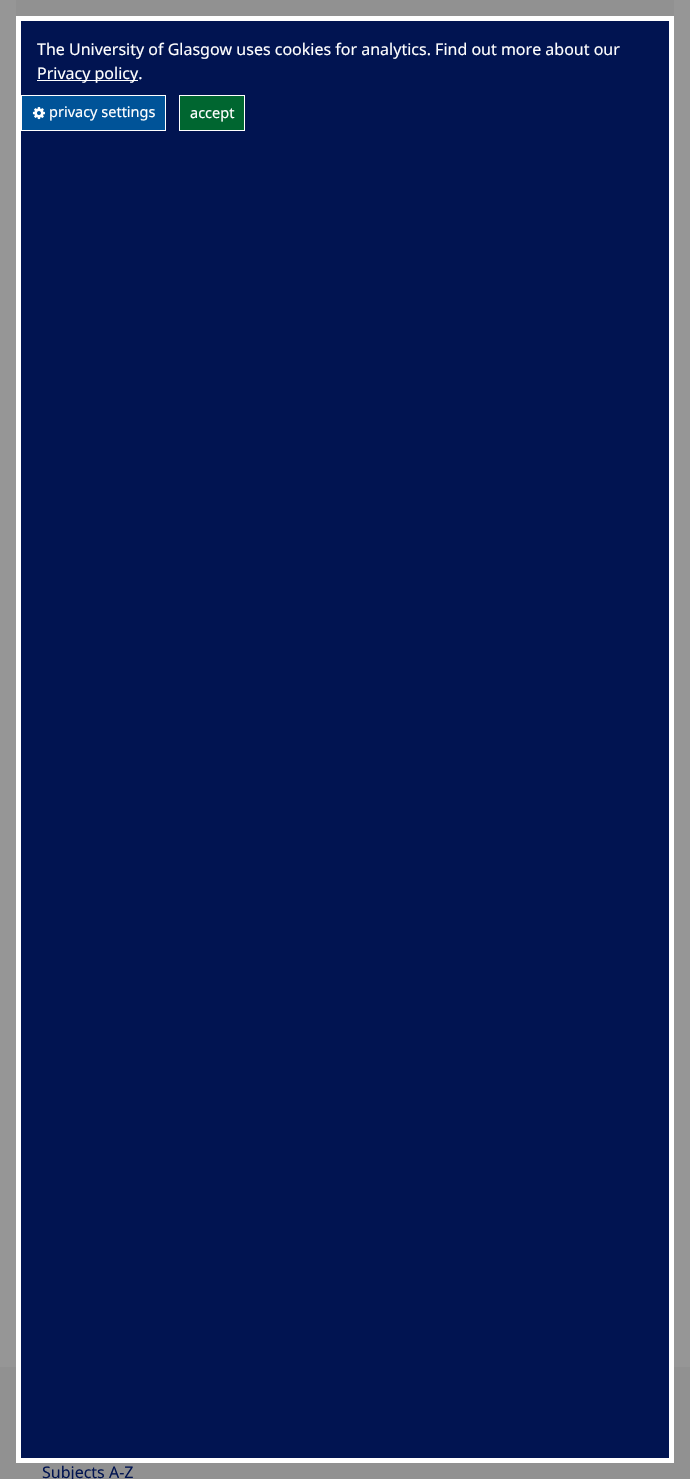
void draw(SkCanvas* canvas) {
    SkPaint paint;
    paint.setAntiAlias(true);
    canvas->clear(0xFFFFFFFF);
    paint.setColor(0xFFF7F7F7);
    canvas->drawRect(SkRect::MakeXYWH(16, 0, 658, 16), paint);
    canvas->drawRect(SkRect::MakeXYWH(0, 1367, 690, 112), paint);
    paint.setColor(0x69000000);
    paint.setMaskFilter(SkMaskFilter::MakeBlur(kNormal_SkBlurStyle, 9.5f));
    canvas->drawRect(SkRect::MakeXYWH(-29, -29, 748, 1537), paint);
    paint.setMaskFilter(nullptr);
    paint.setColor(0xFF011451);
    canvas->drawRect(SkRect::MakeXYWH(18.5f, 18.5f, 653, 1442), paint);
    paint.setStyle(SkPaint::kStroke_Style);
    paint.setStrokeWidth(5);
    paint.setColor(0xFFFFFFFF);
    canvas->drawRect(SkRect::MakeXYWH(18.5f, 18.5f, 653, 1442), paint);
    SkFont font1(fontMgr->matchFamilyStyle("Noto Sans", SkFontStyle::Normal()), 16);
    font1.setSubpixel(true);
    paint.setStyle(SkPaint::kFill_Style);
    canvas->drawString("The University of Glasgow uses cookies for analytics. Find out more about our", 37, 55, font1, paint);
    canvas->drawRect(SkRect::MakeXYWH(37, 80, 101, 1), paint);
    canvas->drawString("Privacy policy.", 37, 79, font1, paint);
    paint.setColor(0xFF005398);
    canvas->drawRect(SkRect::MakeXYWH(21.5f, 95.5f, 144, 35), paint);
    paint.setStyle(SkPaint::kStroke_Style);
    paint.setStrokeWidth(1);
    paint.setColor(0xFFFFFFFF);
    canvas->drawRect(SkRect::MakeXYWH(21.5f, 95.5f, 144, 35), paint);
    canvas->drawImageRect(SkImages::DeferredFromEncodedData(SkData::MakeFromFileName("img1.png")), SkRect::MakeXYWH(32, 107, 13, 13), SkSamplingOptions());
    SkFont font2(fontMgr->matchFamilyStyle("Noto Sans", SkFontStyle::Normal()), 14.5f);
    font2.setSubpixel(true);
    paint.setStyle(SkPaint::kFill_Style);
    canvas->drawString("privacy settings", 49, 117, font2, paint);
    paint.setColor(0xFF006630);
    canvas->drawRect(SkRect::MakeXYWH(179.5f, 95.5f, 65, 35), paint);
    paint.setStyle(SkPaint::kStroke_Style);
    paint.setColor(0xFFFFFFFF);
    canvas->drawRect(SkRect::MakeXYWH(179.5f, 95.5f, 65, 35), paint);
    paint.setStyle(SkPaint::kFill_Style);
    canvas->drawString("accept", 190, 118, font2, paint);
    paint.setColor(0xFF011451);
    canvas->drawString("Subjects A-Z", 42, 1478, font1, paint);
}
